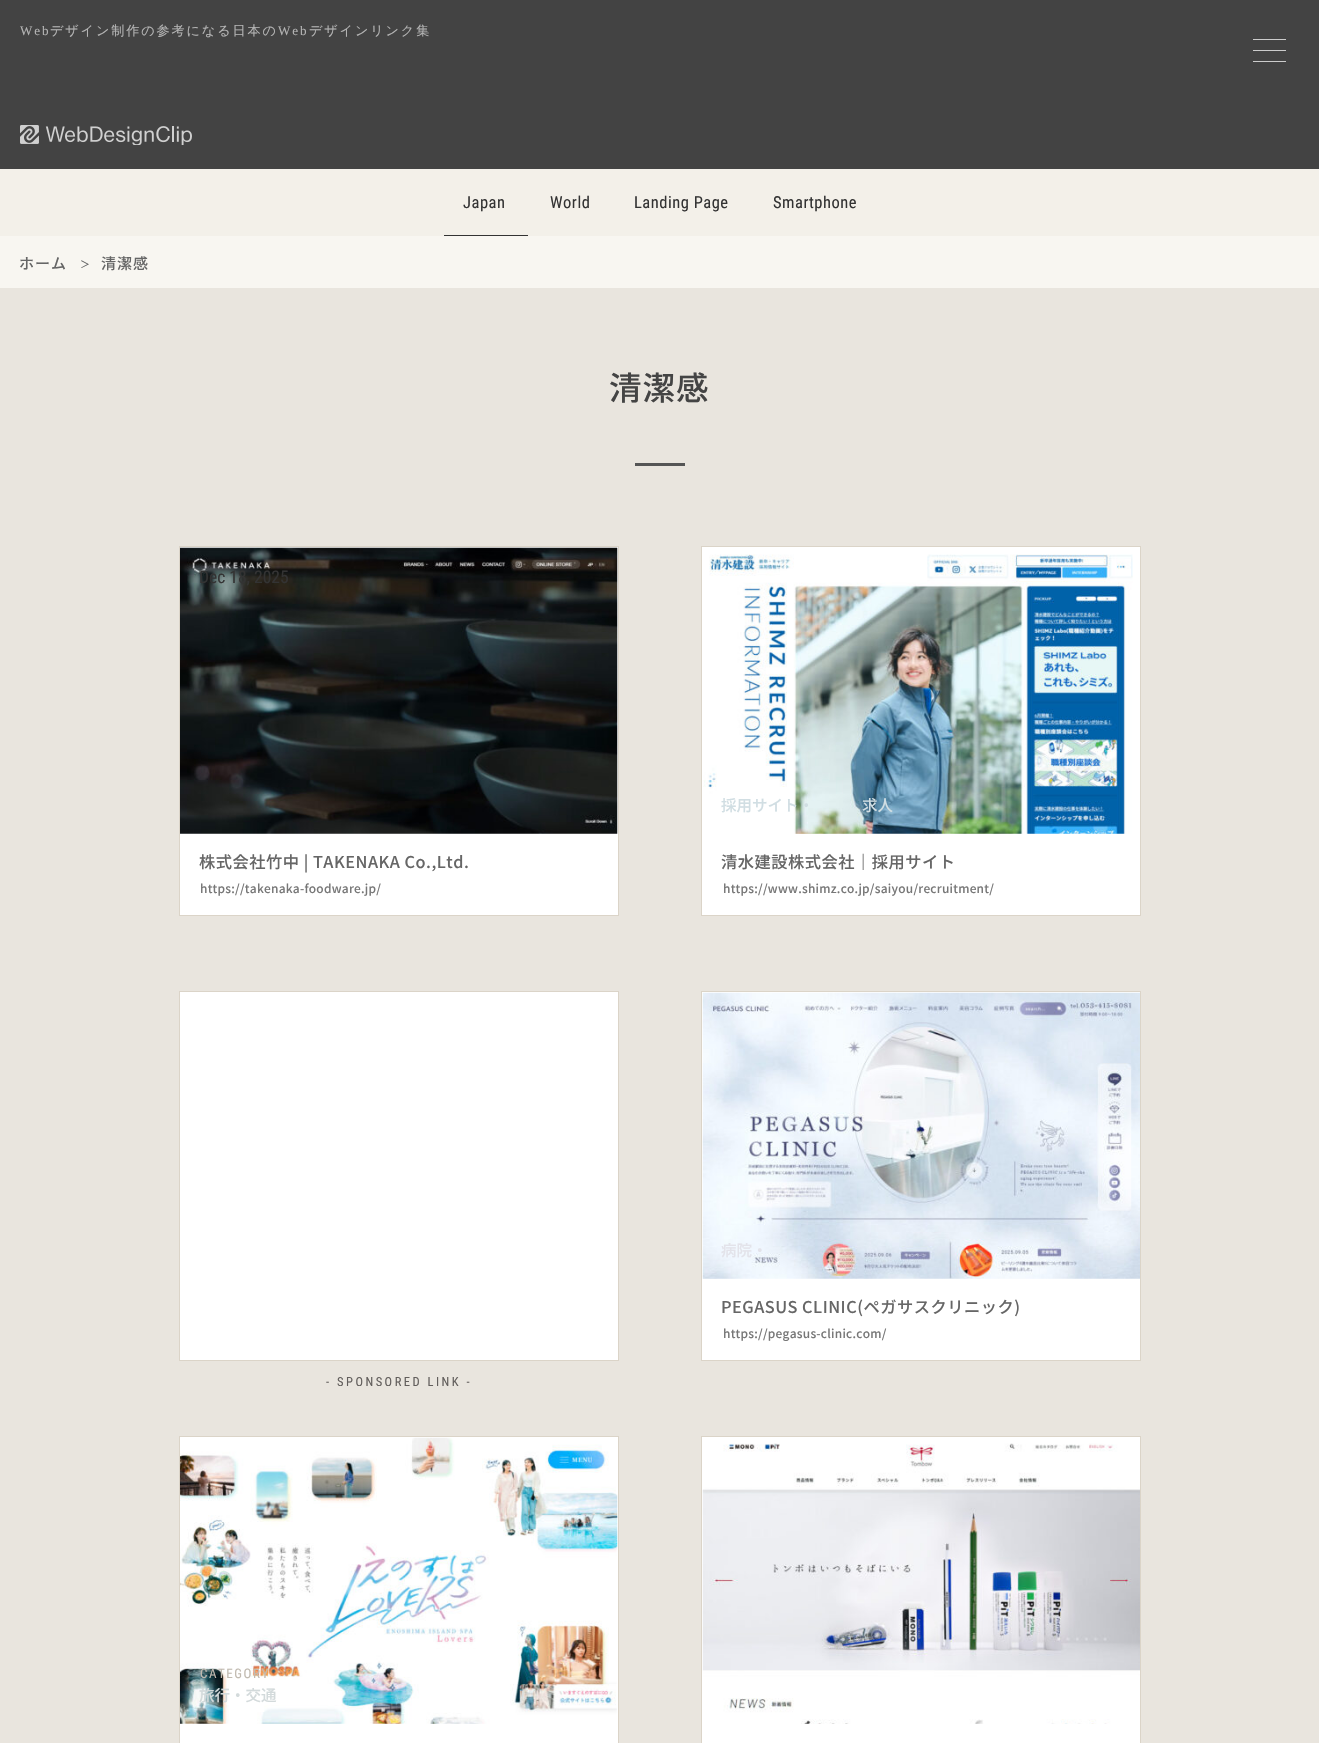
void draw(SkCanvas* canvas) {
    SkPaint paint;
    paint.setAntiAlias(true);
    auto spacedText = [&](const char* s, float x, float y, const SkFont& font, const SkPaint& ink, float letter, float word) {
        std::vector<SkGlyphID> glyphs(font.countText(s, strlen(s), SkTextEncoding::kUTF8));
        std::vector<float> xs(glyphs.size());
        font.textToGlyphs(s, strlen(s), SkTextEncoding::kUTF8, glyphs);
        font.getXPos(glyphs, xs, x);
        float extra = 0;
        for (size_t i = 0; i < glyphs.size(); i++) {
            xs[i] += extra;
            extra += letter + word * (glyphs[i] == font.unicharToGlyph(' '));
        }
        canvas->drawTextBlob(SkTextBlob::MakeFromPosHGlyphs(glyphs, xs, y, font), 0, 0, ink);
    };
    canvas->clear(0xFFE9E5DE);
    paint.setColor(0xFF434343);
    canvas->drawRect(SkRect::MakeXYWH(0, 0, 1319, 169), paint);
    SkFont font1(fontMgr->matchFamilyStyle("Liberation Serif", SkFontStyle::Normal()), 13.1f);
    font1.setSubpixel(true);
    paint.setColor(0xFFB4B4B4);
    spacedText("Web", 20, 35, font1, paint, 1.9f, 0);
    SkFont font2(fontMgr->matchFamilyStyle("WenQuanYi Zen Hei", SkFontStyle(500, SkFontStyle::kNormal_Width, SkFontStyle::kUpright_Slant)), 13.1f);
    font2.setSubpixel(true);
    spacedText("デザイン制作の参考になる日本の", 50, 35, font2, paint, 1.9f, 0);
    spacedText("Web", 278, 35, font1, paint, 1.9f, 0);
    spacedText("デザインリンク集", 309, 35, font2, paint, 1.9f, 0);
    canvas->drawImageRect(SkImages::DeferredFromEncodedData(SkData::MakeFromFileName("img1.png")), SkRect::MakeXYWH(20, 125, 172, 20), SkSamplingOptions());
    paint.setColor(0xFFF3F0E9);
    canvas->drawRect(SkRect::MakeXYWH(0, 169, 1319, 67), paint);
    SkFont font3(fontMgr->matchFamilyStyle("Roboto Condensed", SkFontStyle::Normal()), 16.5f);
    font3.setSubpixel(true);
    paint.setColor(0xFF333333);
    spacedText("Japan", 463, 208, font3, paint, 0.5f, 0);
    canvas->drawRect(SkRect::MakeXYWH(444, 235, 84, 1), paint);
    spacedText("World", 550, 208, font3, paint, 0.5f, 0);
    spacedText("Landing Page", 634, 208, font3, paint, 0.5f, 0);
    spacedText("Smartphone", 773, 208, font3, paint, 0.5f, 0);
    paint.setColor(0xFFF8F6F1);
    canvas->drawRect(SkRect::MakeXYWH(0, 236, 1319, 52), paint);
    SkFont font4(fontMgr->matchFamilyStyle("Noto Sans JP", SkFontStyle(100, SkFontStyle::kNormal_Width, SkFontStyle::kUpright_Slant)), 15);
    font4.setSubpixel(true);
    paint.setColor(0xFF666666);
    spacedText("ホーム", 19, 269, font4, paint, 1, 0);
    SkFont font5(fontMgr->matchFamilyStyle("Noto Sans JP", SkFontStyle(100, SkFontStyle::kNormal_Width, SkFontStyle::kUpright_Slant)), 10);
    font5.setSubpixel(true);
    spacedText("＞", 80, 268, font5, paint, 1, 0);
    spacedText("清潔感", 101, 269, font4, paint, 1, 0);
    SkFont font6(fontMgr->matchFamilyStyle("Noto Sans JP", SkFontStyle(100, SkFontStyle::kNormal_Width, SkFontStyle::kUpright_Slant)), 32.5f);
    font6.setSubpixel(true);
    paint.setColor(0xFF444444);
    spacedText("清潔感", 609, 400, font6, paint, 1, 0);
    paint.setColor(0xFF555555);
    canvas->drawRect(SkRect::MakeXYWH(635, 463, 50, 3), paint);
    paint.setColor(0xFFFFFFFF);
    canvas->drawRect(SkRect::MakeXYWH(179.5f, 546.5f, 439, 369), paint);
    paint.setStyle(SkPaint::kStroke_Style);
    paint.setStrokeWidth(1);
    paint.setColor(0xFFDBD4C8);
    canvas->drawRect(SkRect::MakeXYWH(179.5f, 546.5f, 439, 369), paint);
    canvas->drawImageRect(SkImages::DeferredFromEncodedData(SkData::MakeFromFileName("img2.png")), SkRect::MakeXYWH(180, 547, 438, 287), SkSamplingOptions());
    SkFont font7(fontMgr->matchFamilyStyle("Roboto Condensed", SkFontStyle::Normal()), 17.5f);
    font7.setSubpixel(true);
    paint.setStyle(SkPaint::kFill_Style);
    paint.setColor(0xFF333333);
    canvas->drawString("Dec 18, 2025", 199, 583, font7, paint);
    SkFont font8(fontMgr->matchFamilyStyle("Noto Sans JP", SkFontStyle(100, SkFontStyle::kNormal_Width, SkFontStyle::kUpright_Slant)), 16.25f);
    font8.setSubpixel(true);
    paint.setColor(0xFF666666);
    spacedText("株式会社竹中 | TAKENAKA Co.,Ltd.", 199, 868, font8, paint, 0.5f, 0);
    SkFont font9(fontMgr->matchFamilyStyle("Noto Sans JP", SkFontStyle(100, SkFontStyle::kNormal_Width, SkFontStyle::kUpright_Slant)), 11.9f);
    font9.setSubpixel(true);
    paint.setColor(0xFF777777);
    spacedText("https://takenaka-foodware.jp/", 200, 893, font9, paint, 0.25f, 0);
    paint.setColor(0xFFFFFFFF);
    canvas->drawRect(SkRect::MakeXYWH(701.5f, 546.5f, 439, 369), paint);
    paint.setStyle(SkPaint::kStroke_Style);
    paint.setColor(0xFFDBD4C8);
    canvas->drawRect(SkRect::MakeXYWH(701.5f, 546.5f, 439, 369), paint);
    canvas->drawImageRect(SkImages::DeferredFromEncodedData(SkData::MakeFromFileName("img3.png")), SkRect::MakeXYWH(703, 554, 430, 280), SkSamplingOptions());
    SkFont font10(fontMgr->matchFamilyStyle("Noto Sans JP", SkFontStyle(100, SkFontStyle::kNormal_Width, SkFontStyle::kUpright_Slant)), 15.5f);
    font10.setSubpixel(true);
    paint.setStyle(SkPaint::kFill_Style);
    paint.setColor(0xFFD1DEE3);
    canvas->drawString("採用サイト・", 721, 811, font10, paint);
    canvas->drawString("求人", 862, 811, font10, paint);
    paint.setColor(0xFF666666);
    spacedText("清水建設株式会社｜採用サイト", 721, 868, font8, paint, 0.5f, 0);
    paint.setColor(0xFF777777);
    spacedText("https://www.shimz.co.jp/saiyou/recruitment/", 723, 893, font9, paint, 0.25f, 0);
    paint.setColor(0xFFFFFFFF);
    canvas->drawRect(SkRect::MakeXYWH(701.5f, 991.5f, 439, 369), paint);
    paint.setStyle(SkPaint::kStroke_Style);
    paint.setColor(0xFFDBD4C8);
    canvas->drawRect(SkRect::MakeXYWH(701.5f, 991.5f, 439, 369), paint);
    canvas->drawImageRect(SkImages::DeferredFromEncodedData(SkData::MakeFromFileName("img4.png")), SkRect::MakeXYWH(702, 992, 438, 287), SkSamplingOptions());
    paint.setStyle(SkPaint::kFill_Style);
    paint.setColor(0xFFE3E3EA);
    canvas->drawString("病院・", 721, 1256, font10, paint);
    paint.setColor(0xFF666666);
    spacedText("PEGASUS CLINIC(ペガサスクリニック)", 721, 1313, font8, paint, 0.5f, 0);
    paint.setColor(0xFF777777);
    spacedText("https://pegasus-clinic.com/", 723, 1338, font9, paint, 0.25f, 0);
    paint.setColor(0xFFFFFFFF);
    canvas->drawRect(SkRect::MakeXYWH(179.5f, 991.5f, 439, 369), paint);
    paint.setStyle(SkPaint::kStroke_Style);
    paint.setColor(0xFFDBD4C8);
    canvas->drawRect(SkRect::MakeXYWH(179.5f, 991.5f, 439, 369), paint);
    SkFont font11(fontMgr->matchFamilyStyle("Roboto Condensed", SkFontStyle::Normal()), 12.5f);
    font11.setSubpixel(true);
    paint.setStyle(SkPaint::kFill_Style);
    paint.setColor(0xFF625E5C);
    spacedText("- SPONSORED LINK -", 326, 1386, font11, paint, 2.5f, 0);
    paint.setColor(0xFFFFFFFF);
    canvas->drawRect(SkRect::MakeXYWH(179.5f, 1436.5f, 439, 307), paint);
    paint.setStyle(SkPaint::kStroke_Style);
    paint.setColor(0xFFDBD4C8);
    canvas->drawRect(SkRect::MakeXYWH(179.5f, 1436.5f, 439, 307), paint);
    canvas->drawImageRect(SkImages::DeferredFromEncodedData(SkData::MakeFromFileName("img5.png")), SkRect::MakeXYWH(180, 1437, 438, 287), SkSamplingOptions());
    SkFont font12(fontMgr->matchFamilyStyle("Roboto Condensed", SkFontStyle::Normal()), 13.1f);
    font12.setSubpixel(true);
    paint.setStyle(SkPaint::kFill_Style);
    paint.setColor(0xFFC1BAB0);
    spacedText("CATEGORY", 200, 1678, font12, paint, 1.5f, 0);
    paint.setColor(0xFFD3DADB);
    canvas->drawString("旅行・交通", 199, 1701, font10, paint);
    paint.setColor(0xFFFFFFFF);
    canvas->drawRect(SkRect::MakeXYWH(701.5f, 1436.5f, 439, 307), paint);
    paint.setStyle(SkPaint::kStroke_Style);
    paint.setColor(0xFFDBD4C8);
    canvas->drawRect(SkRect::MakeXYWH(701.5f, 1436.5f, 439, 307), paint);
    canvas->drawImageRect(SkImages::DeferredFromEncodedData(SkData::MakeFromFileName("img6.png")), SkRect::MakeXYWH(702, 1443, 438, 281), SkSamplingOptions());
    paint.setStyle(SkPaint::kFill_Style);
    paint.setColor(0xFFCCCCCC);
    canvas->drawRect(SkRect::MakeXYWH(1253, 39, 33, 1), paint);
    canvas->drawRect(SkRect::MakeXYWH(1253, 50, 33, 1), paint);
    canvas->drawRect(SkRect::MakeXYWH(1253, 61, 33, 1), paint);
}
